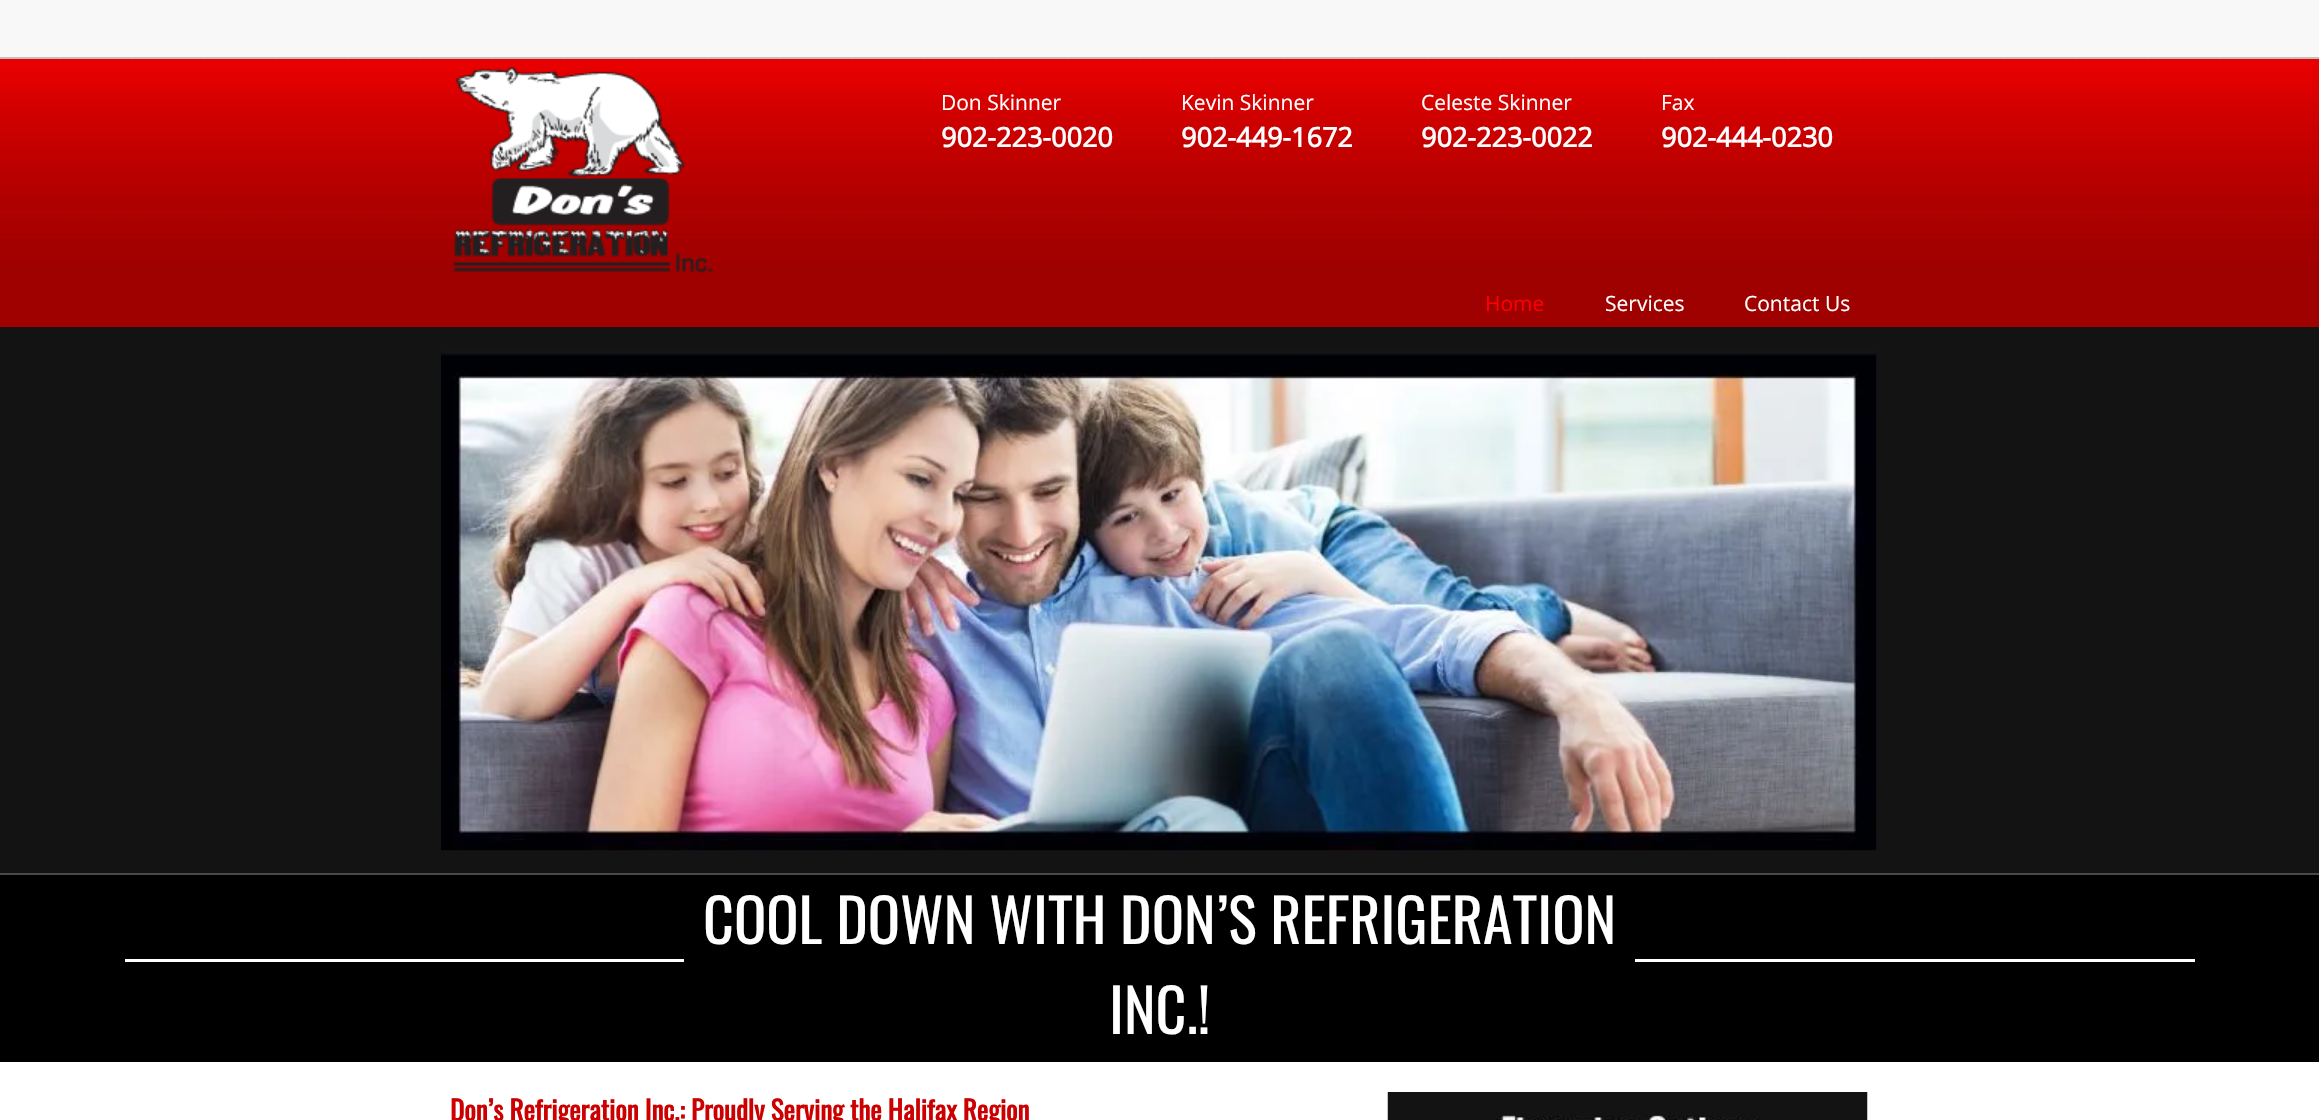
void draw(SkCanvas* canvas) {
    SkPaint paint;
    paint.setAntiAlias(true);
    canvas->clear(0xFFFFFFFF);
    paint.setColor(0xFFF8F8F8);
    canvas->drawRect(SkRect::MakeXYWH(0, 0, 2319, 57), paint);
    canvas->drawImageRect(SkImages::DeferredFromEncodedData(SkData::MakeFromFileName("img1.png")), SkRect::MakeXYWH(0, 59, 2319, 268), SkSamplingOptions());
    paint.setColor(0xFFBFBFBF);
    canvas->drawRect(SkRect::MakeXYWH(0, 57, 2319, 2), paint);
    canvas->drawImageRect(SkImages::DeferredFromEncodedData(SkData::MakeFromFileName("img2.png")), SkRect::MakeXYWH(452, 67, 261, 207), SkSamplingOptions());
    SkFont font1(fontMgr->matchFamilyStyle("Open Sans", SkFontStyle::Normal()), 21);
    font1.setSubpixel(true);
    paint.setColor(0xFFFFFFFF);
    canvas->drawString("Don Skinner", 941, 110, font1, paint);
    SkFont font2(fontMgr->matchFamilyStyle("Open Sans", SkFontStyle::Bold()), 27);
    font2.setSubpixel(true);
    canvas->drawString("902-223-0020", 941, 147, font2, paint);
    canvas->drawString("Kevin Skinner", 1181, 110, font1, paint);
    canvas->drawString("902-449-1672", 1181, 147, font2, paint);
    canvas->drawString("Celeste Skinner", 1421, 110, font1, paint);
    canvas->drawString("902-223-0022", 1421, 147, font2, paint);
    canvas->drawString("Fax", 1661, 110, font1, paint);
    canvas->drawString("902-444-0230", 1661, 147, font2, paint);
    paint.setColor(0xFFFF0000);
    canvas->drawString("Home", 1485, 311, font1, paint);
    paint.setColor(0xFFFFFFFF);
    canvas->drawString("Services", 1605, 311, font1, paint);
    canvas->drawString("Contact Us", 1744, 311, font1, paint);
    paint.setColor(0xFF131313);
    canvas->drawRect(SkRect::MakeXYWH(0, 327, 2319, 546), paint);
    canvas->drawImageRect(SkImages::DeferredFromEncodedData(SkData::MakeFromFileName("img3.png")), SkRect::MakeXYWH(441, 351, 1436, 500), SkSamplingOptions());
    paint.setColor(0xFF000000);
    canvas->drawRect(SkRect::MakeXYWH(0, 875, 2319, 187), paint);
    paint.setColor(0xFF484848);
    canvas->drawRect(SkRect::MakeXYWH(0, 873, 2319, 2), paint);
    paint.setColor(0xFFFFFFFF);
    canvas->drawRect(SkRect::MakeXYWH(125, 959, 559, 3), paint);
    SkFont font3(fontMgr->matchFamilyStyle("Oswald", SkFontStyle::Normal()), 60);
    font3.setSubpixel(true);
    canvas->drawString("COOL DOWN WITH DON’S REFRIGERATION", 703, 944, font3, paint);
    canvas->drawString("INC.!", 1109, 1034, font3, paint);
    canvas->drawRect(SkRect::MakeXYWH(1635, 959, 560, 3), paint);
    SkFont font4(fontMgr->matchFamilyStyle("Oswald", SkFontStyle::Bold()), 27);
    font4.setSubpixel(true);
    paint.setColor(0xFFCC0000);
    canvas->drawString("Don’s Refrigeration Inc.: Proudly Serving the Halifax Region", 450, 1121, font4, paint);
    canvas->drawImageRect(SkImages::DeferredFromEncodedData(SkData::MakeFromFileName("img4.png")), SkRect::MakeXYWH(1387, 1092, 481, 28), SkSamplingOptions());
}
